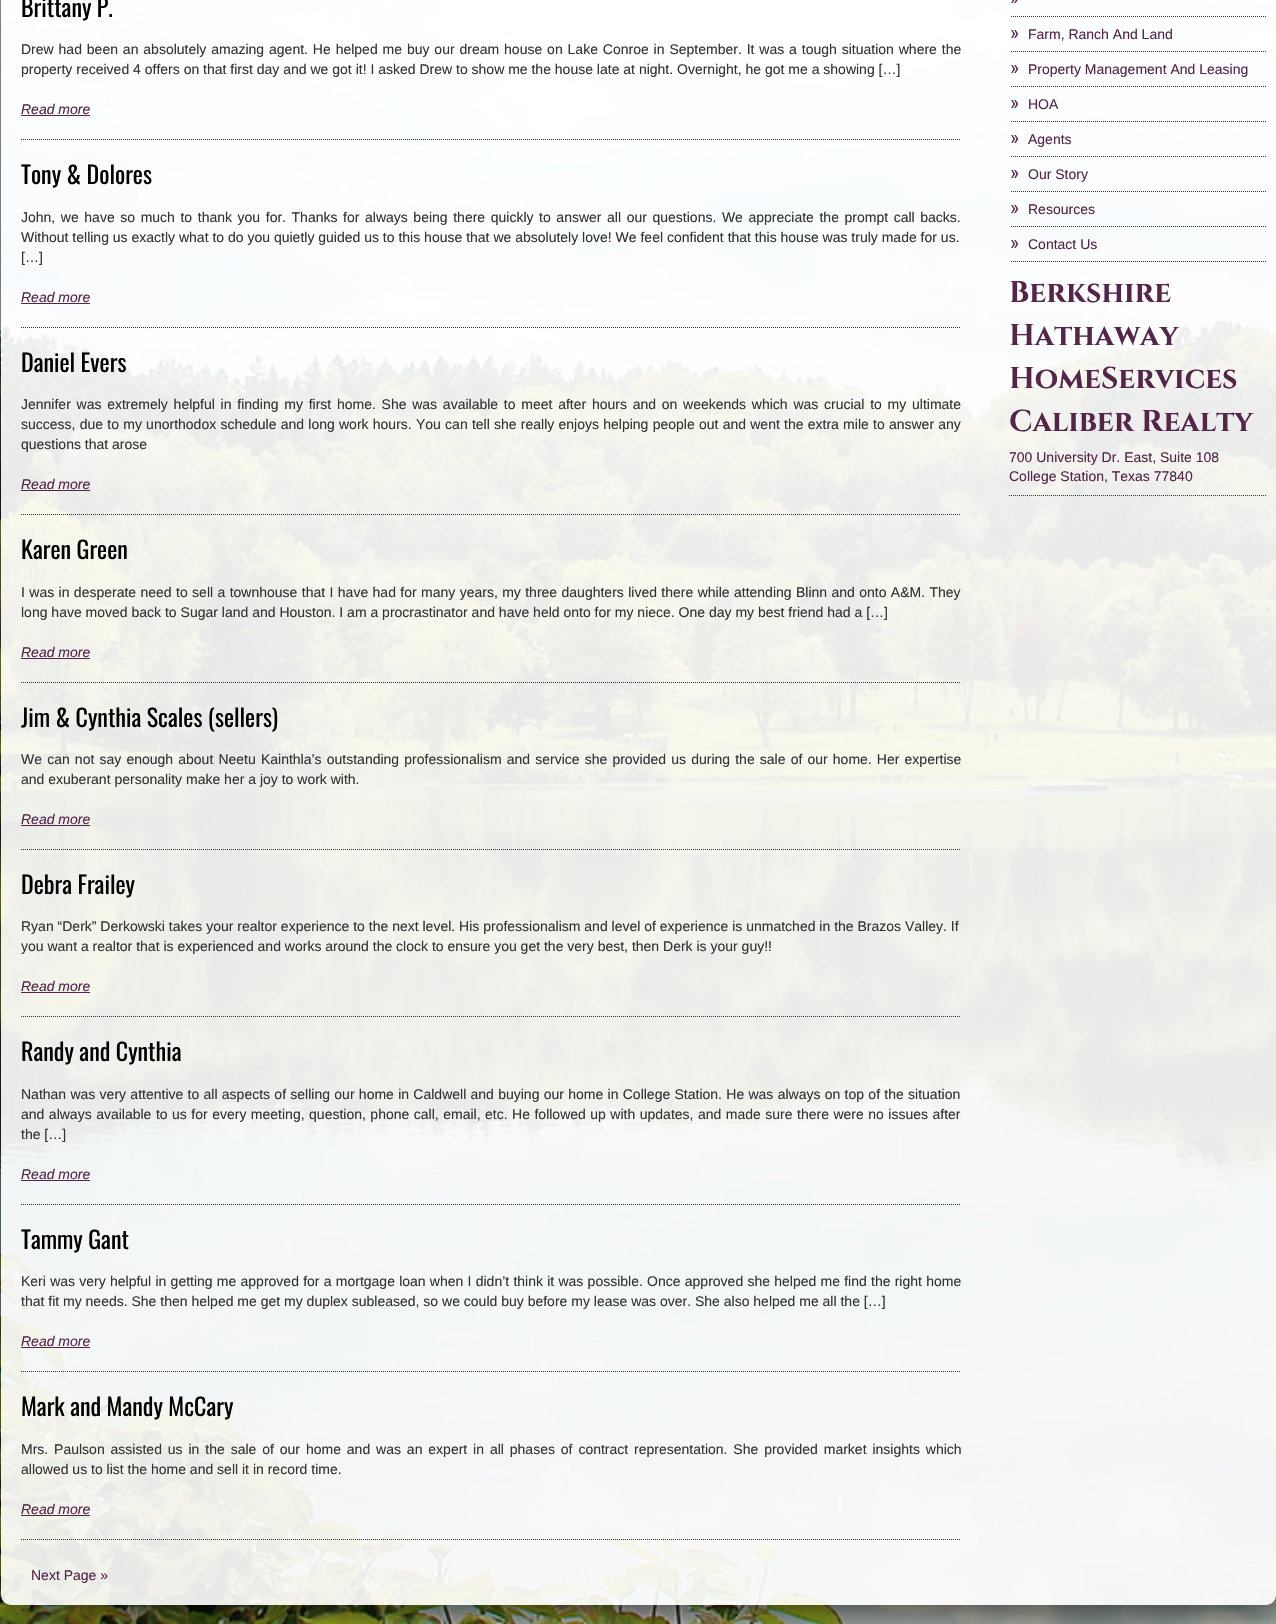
void draw(SkCanvas* canvas) {
    SkPaint paint;
    paint.setAntiAlias(true);
    auto spacedText = [&](const char* s, float x, float y, const SkFont& font, const SkPaint& ink, float letter, float word) {
        std::vector<SkGlyphID> glyphs(font.countText(s, strlen(s), SkTextEncoding::kUTF8));
        std::vector<float> xs(glyphs.size());
        font.textToGlyphs(s, strlen(s), SkTextEncoding::kUTF8, glyphs);
        font.getXPos(glyphs, xs, x);
        float extra = 0;
        for (size_t i = 0; i < glyphs.size(); i++) {
            xs[i] += extra;
            extra += letter + word * (glyphs[i] == font.unicharToGlyph(' '));
        }
        canvas->drawTextBlob(SkTextBlob::MakeFromPosHGlyphs(glyphs, xs, y, font), 0, 0, ink);
    };
    canvas->clear(0xFFFFFFFF);
    canvas->drawImageRect(SkImages::DeferredFromEncodedData(SkData::MakeFromFileName("img1.png")), SkRect::MakeXYWH(0, 0, 1276, 1624), SkSamplingOptions());
    canvas->save();
    canvas->clipPath(SkPathBuilder(SkPathFillType::kEvenOdd).moveTo(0, 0).lineTo(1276, 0).lineTo(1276, 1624).lineTo(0, 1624).close().moveTo(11, -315).lineTo(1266, -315).cubicTo(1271.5f, -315, 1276, -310.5f, 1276, -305).lineTo(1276, 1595).cubicTo(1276, 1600.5f, 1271.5f, 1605, 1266, 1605).lineTo(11, 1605).cubicTo(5.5f, 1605, 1, 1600.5f, 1, 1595).lineTo(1, -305).cubicTo(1, -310.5f, 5.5f, -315, 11, -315).close().detach(), true);
    paint.setColor(0xBF000000);
    paint.setMaskFilter(SkMaskFilter::MakeBlur(kNormal_SkBlurStyle, 20));
    canvas->drawRoundRect(SkRect::MakeXYWH(-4, -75, 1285, 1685), 15, 15, paint);
    paint.setMaskFilter(nullptr);
    canvas->restore();
    paint.setColor(0xE6FFFFFF);
    canvas->drawRoundRect(SkRect::MakeXYWH(1, -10, 1275, 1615), 10, 10, paint);
    paint.setStyle(SkPaint::kStroke_Style);
    paint.setStrokeWidth(1);
    paint.setColor(0xFF333333);
    paint.setPathEffect(SkDashPathEffect::Make({{1, 1}}, 0));
    canvas->drawPath(SkPathBuilder().moveTo(21, 139.5f).lineTo(961, 139.5f).detach(), paint);
    paint.setPathEffect(nullptr);
    SkFont font1(fontMgr->matchFamilyStyle("Oswald", SkFontStyle::Normal()), 24);
    font1.setSubpixel(true);
    paint.setStyle(SkPaint::kFill_Style);
    paint.setColor(0xFF000000);
    canvas->drawString("Brittany P.", 21, 17, font1, paint);
    SkFont font2(fontMgr->matchFamilyStyle("Liberation Sans", SkFontStyle::Normal()), 14);
    font2.setSubpixel(true);
    paint.setColor(0xFF333333);
    spacedText("Drew had been an absolutely amazing agent. He helped me buy our dream house on Lake Conroe in September. It was a tough situation where the", 21, 54, font2, paint, 0, 1);
    canvas->drawString("property received 4 offers on that first day and we got it! I asked Drew to show me the house late at night. Overnight, he got me a showing […]", 21, 74, font2, paint);
    SkFont font3(fontMgr->matchFamilyStyle("Liberation Sans", SkFontStyle::Italic()), 14);
    font3.setSubpixel(true);
    paint.setColor(0xFF542549);
    canvas->drawString("Read more", 21, 114, font3, paint);
    canvas->drawRect(SkRect::MakeXYWH(21, 115, 69, 1), paint);
    paint.setStyle(SkPaint::kStroke_Style);
    paint.setColor(0xFF333333);
    paint.setPathEffect(SkDashPathEffect::Make({{1, 1}}, 0));
    canvas->drawPath(SkPathBuilder().moveTo(21, 327.5f).lineTo(961, 327.5f).detach(), paint);
    paint.setPathEffect(nullptr);
    paint.setStyle(SkPaint::kFill_Style);
    paint.setColor(0xFF000000);
    canvas->drawString("Tony & Dolores", 21, 184, font1, paint);
    paint.setColor(0xFF333333);
    spacedText("John, we have so much to thank you for. Thanks for always being there quickly to answer all our questions. We appreciate the prompt call backs.", 21, 222, font2, paint, 0, 1.7f);
    canvas->drawString("Without telling us exactly what to do you quietly guided us to this house that we absolutely love! We feel confident that this house was truly made for us.", 21, 242, font2, paint);
    canvas->drawString("[…]", 21, 262, font2, paint);
    paint.setColor(0xFF542549);
    canvas->drawString("Read more", 21, 302, font3, paint);
    canvas->drawRect(SkRect::MakeXYWH(21, 303, 69, 1), paint);
    paint.setStyle(SkPaint::kStroke_Style);
    paint.setColor(0xFF333333);
    paint.setPathEffect(SkDashPathEffect::Make({{1, 1}}, 0));
    canvas->drawPath(SkPathBuilder().moveTo(21, 514.5f).lineTo(961, 514.5f).detach(), paint);
    paint.setPathEffect(nullptr);
    paint.setStyle(SkPaint::kFill_Style);
    paint.setColor(0xFF000000);
    canvas->drawString("Daniel Evers", 21, 372, font1, paint);
    paint.setColor(0xFF333333);
    spacedText("Jennifer was extremely helpful in finding my first home. She was available to meet after hours and on weekends which was crucial to my ultimate", 21, 409, font2, paint, 0, 1.85f);
    spacedText("success, due to my unorthodox schedule and long work hours. You can tell she really enjoys helping people out and went the extra mile to answer any", 21, 429, font2, paint, 0, 0.35f);
    canvas->drawString("questions that arose", 21, 449, font2, paint);
    paint.setColor(0xFF542549);
    canvas->drawString("Read more", 21, 489, font3, paint);
    canvas->drawRect(SkRect::MakeXYWH(21, 490, 69, 1), paint);
    paint.setStyle(SkPaint::kStroke_Style);
    paint.setColor(0xFF333333);
    paint.setPathEffect(SkDashPathEffect::Make({{1, 1}}, 0));
    canvas->drawPath(SkPathBuilder().moveTo(21, 682.5f).lineTo(961, 682.5f).detach(), paint);
    paint.setPathEffect(nullptr);
    paint.setStyle(SkPaint::kFill_Style);
    paint.setColor(0xFF000000);
    canvas->drawString("Karen Green", 21, 559, font1, paint);
    paint.setColor(0xFF333333);
    spacedText("I was in desperate need to sell a townhouse that I have had for many years, my three daughters lived there while attending Blinn and onto A&M. They", 21, 597, font2, paint, 0, 0.5f);
    canvas->drawString("long have moved back to Sugar land and Houston. I am a procrastinator and have held onto for my niece. One day my best friend had a […]", 21, 617, font2, paint);
    paint.setColor(0xFF542549);
    canvas->drawString("Read more", 21, 657, font3, paint);
    canvas->drawRect(SkRect::MakeXYWH(21, 658, 69, 1), paint);
    paint.setStyle(SkPaint::kStroke_Style);
    paint.setColor(0xFF333333);
    paint.setPathEffect(SkDashPathEffect::Make({{1, 1}}, 0));
    canvas->drawPath(SkPathBuilder().moveTo(21, 849.5f).lineTo(961, 849.5f).detach(), paint);
    paint.setPathEffect(nullptr);
    paint.setStyle(SkPaint::kFill_Style);
    paint.setColor(0xFF000000);
    canvas->drawString("Jim & Cynthia Scales (sellers)", 21, 727, font1, paint);
    paint.setColor(0xFF333333);
    spacedText("We can not say enough about Neetu Kainthla’s outstanding professionalism and service she provided us during the sale of our home. Her expertise", 21, 764, font2, paint, 0, 1.25f);
    canvas->drawString("and exuberant personality make her a joy to work with.", 21, 784, font2, paint);
    paint.setColor(0xFF542549);
    canvas->drawString("Read more", 21, 824, font3, paint);
    canvas->drawRect(SkRect::MakeXYWH(21, 825, 69, 1), paint);
    paint.setStyle(SkPaint::kStroke_Style);
    paint.setColor(0xFF333333);
    paint.setPathEffect(SkDashPathEffect::Make({{1, 1}}, 0));
    canvas->drawPath(SkPathBuilder().moveTo(21, 1016.5f).lineTo(961, 1016.5f).detach(), paint);
    paint.setPathEffect(nullptr);
    paint.setStyle(SkPaint::kFill_Style);
    paint.setColor(0xFF000000);
    canvas->drawString("Debra Frailey", 21, 894, font1, paint);
    paint.setColor(0xFF333333);
    canvas->drawString("Ryan “Derk” Derkowski takes your realtor experience to the next level. His professionalism and level of experience is unmatched in the Brazos Valley. If", 21, 931, font2, paint);
    canvas->drawString("you want a realtor that is experienced and works around the clock to ensure you get the very best, then Derk is your guy!!", 21, 951, font2, paint);
    paint.setColor(0xFF542549);
    canvas->drawString("Read more", 21, 991, font3, paint);
    canvas->drawRect(SkRect::MakeXYWH(21, 992, 69, 1), paint);
    paint.setStyle(SkPaint::kStroke_Style);
    paint.setColor(0xFF333333);
    paint.setPathEffect(SkDashPathEffect::Make({{1, 1}}, 0));
    canvas->drawPath(SkPathBuilder().moveTo(21, 1204.5f).lineTo(961, 1204.5f).detach(), paint);
    paint.setPathEffect(nullptr);
    paint.setStyle(SkPaint::kFill_Style);
    paint.setColor(0xFF000000);
    canvas->drawString("Randy and Cynthia", 21, 1061, font1, paint);
    paint.setColor(0xFF333333);
    spacedText("Nathan was very attentive to all aspects of selling our home in Caldwell and buying our home in College Station. He was always on top of the situation", 21, 1099, font2, paint, 0, 0.4f);
    spacedText("and always available to us for every meeting, question, phone call, email, etc. He followed up with updates, and made sure there were no issues after", 21, 1119, font2, paint, 0, 0.6f);
    canvas->drawString("the […]", 21, 1139, font2, paint);
    paint.setColor(0xFF542549);
    canvas->drawString("Read more", 21, 1179, font3, paint);
    canvas->drawRect(SkRect::MakeXYWH(21, 1180, 69, 1), paint);
    paint.setStyle(SkPaint::kStroke_Style);
    paint.setColor(0xFF333333);
    paint.setPathEffect(SkDashPathEffect::Make({{1, 1}}, 0));
    canvas->drawPath(SkPathBuilder().moveTo(21, 1371.5f).lineTo(961, 1371.5f).detach(), paint);
    paint.setPathEffect(nullptr);
    paint.setStyle(SkPaint::kFill_Style);
    paint.setColor(0xFF000000);
    canvas->drawString("Tammy Gant", 21, 1249, font1, paint);
    paint.setColor(0xFF333333);
    spacedText("Keri was very helpful in getting me approved for a mortgage loan when I didn’t think it was possible. Once approved she helped me find the right home", 21, 1286, font2, paint, 0, 0.35f);
    canvas->drawString("that fit my needs. She then helped me get my duplex subleased, so we could buy before my lease was over. She also helped me all the […]", 21, 1306, font2, paint);
    paint.setColor(0xFF542549);
    canvas->drawString("Read more", 21, 1346, font3, paint);
    canvas->drawRect(SkRect::MakeXYWH(21, 1347, 69, 1), paint);
    paint.setStyle(SkPaint::kStroke_Style);
    paint.setColor(0xFF333333);
    paint.setPathEffect(SkDashPathEffect::Make({{1, 1}}, 0));
    canvas->drawPath(SkPathBuilder().moveTo(21, 1539.5f).lineTo(961, 1539.5f).detach(), paint);
    paint.setPathEffect(nullptr);
    paint.setStyle(SkPaint::kFill_Style);
    paint.setColor(0xFF000000);
    canvas->drawString("Mark and Mandy McCary", 21, 1416, font1, paint);
    paint.setColor(0xFF333333);
    spacedText("Mrs. Paulson assisted us in the sale of our home and was an expert in all phases of contract representation. She provided market insights which", 21, 1454, font2, paint, 0, 2);
    canvas->drawString("allowed us to list the home and sell it in record time.", 21, 1474, font2, paint);
    paint.setColor(0xFF542549);
    canvas->drawString("Read more", 21, 1514, font3, paint);
    canvas->drawRect(SkRect::MakeXYWH(21, 1515, 69, 1), paint);
    canvas->drawString("Next Page »", 31, 1580, font2, paint);
    paint.setStyle(SkPaint::kStroke_Style);
    paint.setPathEffect(SkDashPathEffect::Make({{1, 1}}, 0));
    canvas->drawPath(SkPathBuilder().moveTo(1011, 16.5f).lineTo(1266, 16.5f).detach(), paint);
    paint.setPathEffect(nullptr);
    canvas->drawImageRect(SkImages::DeferredFromEncodedData(SkData::MakeFromFileName("img2.png")), SkRect::MakeXYWH(1011, 0, 7, 3), SkSamplingOptions());
    paint.setPathEffect(SkDashPathEffect::Make({{1, 1}}, 0));
    canvas->drawPath(SkPathBuilder().moveTo(1011, 51.5f).lineTo(1266, 51.5f).detach(), paint);
    paint.setPathEffect(nullptr);
    canvas->drawImageRect(SkImages::DeferredFromEncodedData(SkData::MakeFromFileName("img3.png")), SkRect::MakeXYWH(1011, 30, 8, 8), SkSamplingOptions());
    paint.setStyle(SkPaint::kFill_Style);
    canvas->drawString("Farm, Ranch And Land", 1028, 39, font2, paint);
    paint.setStyle(SkPaint::kStroke_Style);
    paint.setPathEffect(SkDashPathEffect::Make({{1, 1}}, 0));
    canvas->drawPath(SkPathBuilder().moveTo(1011, 86.5f).lineTo(1266, 86.5f).detach(), paint);
    paint.setPathEffect(nullptr);
    canvas->drawImageRect(SkImages::DeferredFromEncodedData(SkData::MakeFromFileName("img4.png")), SkRect::MakeXYWH(1011, 65, 8, 8), SkSamplingOptions());
    paint.setStyle(SkPaint::kFill_Style);
    canvas->drawString("Property Management And Leasing", 1028, 74, font2, paint);
    paint.setStyle(SkPaint::kStroke_Style);
    paint.setPathEffect(SkDashPathEffect::Make({{1, 1}}, 0));
    canvas->drawPath(SkPathBuilder().moveTo(1011, 121.5f).lineTo(1266, 121.5f).detach(), paint);
    paint.setPathEffect(nullptr);
    canvas->drawImageRect(SkImages::DeferredFromEncodedData(SkData::MakeFromFileName("img5.png")), SkRect::MakeXYWH(1011, 100, 8, 8), SkSamplingOptions());
    paint.setStyle(SkPaint::kFill_Style);
    canvas->drawString("HOA", 1028, 109, font2, paint);
    paint.setStyle(SkPaint::kStroke_Style);
    paint.setPathEffect(SkDashPathEffect::Make({{1, 1}}, 0));
    canvas->drawPath(SkPathBuilder().moveTo(1011, 156.5f).lineTo(1266, 156.5f).detach(), paint);
    paint.setPathEffect(nullptr);
    canvas->drawImageRect(SkImages::DeferredFromEncodedData(SkData::MakeFromFileName("img6.png")), SkRect::MakeXYWH(1011, 135, 8, 8), SkSamplingOptions());
    paint.setStyle(SkPaint::kFill_Style);
    canvas->drawString("Agents", 1028, 144, font2, paint);
    paint.setStyle(SkPaint::kStroke_Style);
    paint.setPathEffect(SkDashPathEffect::Make({{1, 1}}, 0));
    canvas->drawPath(SkPathBuilder().moveTo(1011, 191.5f).lineTo(1266, 191.5f).detach(), paint);
    paint.setPathEffect(nullptr);
    canvas->drawImageRect(SkImages::DeferredFromEncodedData(SkData::MakeFromFileName("img7.png")), SkRect::MakeXYWH(1011, 170, 8, 8), SkSamplingOptions());
    paint.setStyle(SkPaint::kFill_Style);
    canvas->drawString("Our Story", 1028, 179, font2, paint);
    paint.setStyle(SkPaint::kStroke_Style);
    paint.setPathEffect(SkDashPathEffect::Make({{1, 1}}, 0));
    canvas->drawPath(SkPathBuilder().moveTo(1011, 226.5f).lineTo(1266, 226.5f).detach(), paint);
    paint.setPathEffect(nullptr);
    canvas->drawImageRect(SkImages::DeferredFromEncodedData(SkData::MakeFromFileName("img8.png")), SkRect::MakeXYWH(1011, 205, 8, 8), SkSamplingOptions());
    paint.setStyle(SkPaint::kFill_Style);
    canvas->drawString("Resources", 1028, 214, font2, paint);
    paint.setStyle(SkPaint::kStroke_Style);
    paint.setPathEffect(SkDashPathEffect::Make({{1, 1}}, 0));
    canvas->drawPath(SkPathBuilder().moveTo(1011, 261.5f).lineTo(1266, 261.5f).detach(), paint);
    paint.setPathEffect(nullptr);
    canvas->drawImageRect(SkImages::DeferredFromEncodedData(SkData::MakeFromFileName("img9.png")), SkRect::MakeXYWH(1011, 240, 8, 8), SkSamplingOptions());
    paint.setStyle(SkPaint::kFill_Style);
    canvas->drawString("Contact Us", 1028, 249, font2, paint);
    paint.setStyle(SkPaint::kStroke_Style);
    paint.setPathEffect(SkDashPathEffect::Make({{1, 1}}, 0));
    canvas->drawPath(SkPathBuilder().moveTo(1009, 495.5f).lineTo(1266, 495.5f).detach(), paint);
    paint.setPathEffect(nullptr);
    SkFont font4(fontMgr->matchFamilyStyle("Cinzel", SkFontStyle::Bold()), 30);
    font4.setSubpixel(true);
    paint.setStyle(SkPaint::kFill_Style);
    canvas->drawString("Berkshire", 1009, 302, font4, paint);
    canvas->drawString("Hathaway", 1009, 345, font4, paint);
    canvas->drawString("HomeServices", 1009, 388, font4, paint);
    canvas->drawString("Caliber Realty", 1009, 431, font4, paint);
    canvas->drawString("700 University Dr. East, Suite 108", 1009, 462, font2, paint);
    canvas->drawString("College Station, Texas 77840", 1009, 481, font2, paint);
}
